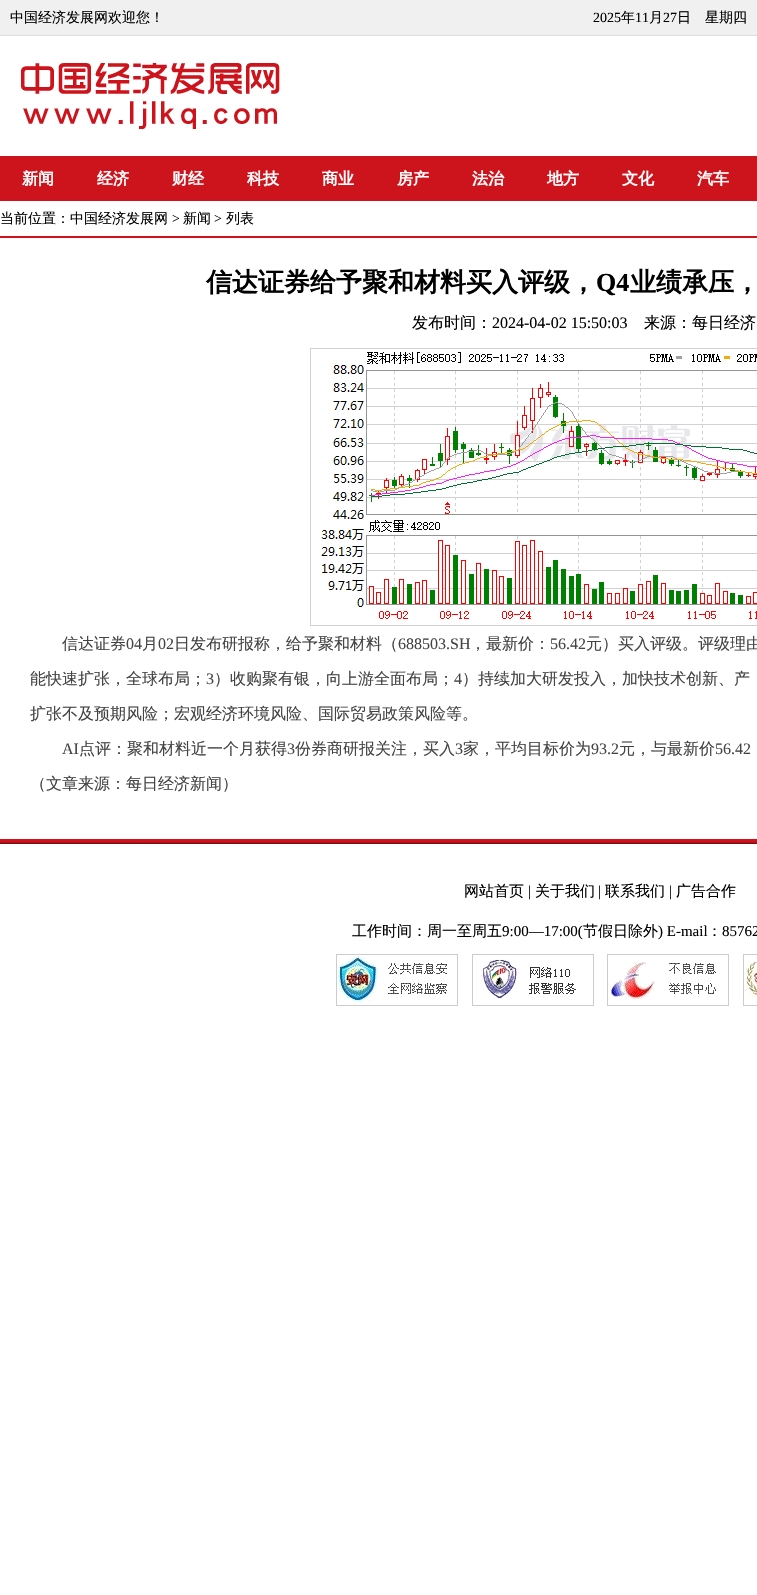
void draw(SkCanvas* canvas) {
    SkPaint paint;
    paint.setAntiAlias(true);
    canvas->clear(0xFFFFFFFF);
    paint.setColor(0xFFF0F0F0);
    canvas->drawRect(SkRect::MakeXYWH(0, 0, 757, 35), paint);
    paint.setColor(0xFFDDDDDD);
    canvas->drawRect(SkRect::MakeXYWH(0, 35, 757, 1), paint);
    SkFont font1(fontMgr->matchFamilyStyle("WenQuanYi Zen Hei", SkFontStyle(500, SkFontStyle::kNormal_Width, SkFontStyle::kUpright_Slant)), 14);
    font1.setSubpixel(true);
    paint.setColor(0xFF000000);
    canvas->drawString("中国经济发展网欢迎您！", 10, 22, font1, paint);
    SkFont font2(fontMgr->matchFamilyStyle("Liberation Serif", SkFontStyle::Normal()), 14);
    font2.setSubpixel(true);
    canvas->drawString("2025", 593, 22, font2, paint);
    canvas->drawString("年", 621, 22, font1, paint);
    canvas->drawString("11", 635, 22, font2, paint);
    canvas->drawString("月", 649, 22, font1, paint);
    canvas->drawString("27", 663, 22, font2, paint);
    canvas->drawString("日　星期四", 677, 22, font1, paint);
    canvas->drawImageRect(SkImages::DeferredFromEncodedData(SkData::MakeFromFileName("img1.png")), SkRect::MakeXYWH(21, 63, 259, 66), SkSamplingOptions());
    paint.setColor(0xFFCD131C);
    canvas->drawRect(SkRect::MakeXYWH(0, 156, 757, 45), paint);
    SkFont font3(fontMgr->matchFamilyStyle("WenQuanYi Zen Hei", SkFontStyle::Bold()), 16);
    font3.setSubpixel(true);
    paint.setColor(0xFFFFFFFF);
    canvas->drawString("新闻", 22, 184, font3, paint);
    canvas->drawString("经济", 97, 184, font3, paint);
    canvas->drawString("财经", 172, 184, font3, paint);
    canvas->drawString("科技", 247, 184, font3, paint);
    canvas->drawString("商业", 322, 184, font3, paint);
    canvas->drawString("房产", 397, 184, font3, paint);
    canvas->drawString("法治", 472, 184, font3, paint);
    canvas->drawString("地方", 547, 184, font3, paint);
    canvas->drawString("文化", 622, 184, font3, paint);
    canvas->drawString("汽车", 697, 184, font3, paint);
    paint.setColor(0xFFCD131C);
    canvas->drawRect(SkRect::MakeXYWH(0, 236, 757, 2), paint);
    paint.setColor(0xFF000000);
    canvas->drawString("当前位置：中国经济发展网", 0, 223, font1, paint);
    canvas->drawString(">", 172, 223, font2, paint);
    canvas->drawString("新闻", 183, 223, font1, paint);
    canvas->drawString(">", 214, 223, font2, paint);
    canvas->drawString("列表", 226, 223, font1, paint);
    SkFont font4(fontMgr->matchFamilyStyle("WenQuanYi Zen Hei", SkFontStyle::Bold()), 26);
    font4.setSubpixel(true);
    canvas->drawString("信达证券给予聚和材料买入评级，", 206, 291, font4, paint);
    SkFont font5(fontMgr->matchFamilyStyle("Liberation Serif", SkFontStyle::Bold()), 26);
    font5.setSubpixel(true);
    canvas->drawString("Q4", 596, 291, font5, paint);
    canvas->drawString("业绩承压，", 630, 291, font4, paint);
    SkFont font6(fontMgr->matchFamilyStyle("WenQuanYi Zen Hei", SkFontStyle(500, SkFontStyle::kNormal_Width, SkFontStyle::kUpright_Slant)), 16);
    font6.setSubpixel(true);
    canvas->drawString("发布时间：", 412, 328, font6, paint);
    SkFont font7(fontMgr->matchFamilyStyle("Liberation Serif", SkFontStyle::Normal()), 16);
    font7.setSubpixel(true);
    canvas->drawString("2024-04-02 15:50:03", 492, 328, font7, paint);
    canvas->drawString("来源：每日经济", 644, 328, font6, paint);
    paint.setStyle(SkPaint::kStroke_Style);
    paint.setStrokeWidth(1);
    paint.setColor(0xFFD1D1D1);
    canvas->drawRect(SkRect::MakeXYWH(310.5f, 348.5f, 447, 277), paint);
    canvas->drawImageRect(SkImages::DeferredFromEncodedData(SkData::MakeFromFileName("img2.png")), SkRect::MakeXYWH(321, 352, 436, 267), SkSamplingOptions());
    paint.setStyle(SkPaint::kFill_Style);
    paint.setColor(0xFF434343);
    canvas->drawString("信达证券", 62, 649, font6, paint);
    canvas->drawString("04", 126, 649, font7, paint);
    canvas->drawString("月", 142, 649, font6, paint);
    canvas->drawString("02", 158, 649, font7, paint);
    canvas->drawString("日发布研报称，给予聚和材料（", 174, 649, font6, paint);
    canvas->drawString("688503.SH", 398, 649, font7, paint);
    canvas->drawString("，最新价：", 470, 649, font6, paint);
    canvas->drawString("56.42", 550, 649, font7, paint);
    canvas->drawString("元）买入评级。评级理由", 586, 649, font6, paint);
    canvas->drawString("能快速扩张，全球布局；", 30, 684, font6, paint);
    canvas->drawString("3", 206, 684, font7, paint);
    canvas->drawString("）收购聚有银，向上游全面布局；", 214, 684, font6, paint);
    canvas->drawString("4", 454, 684, font7, paint);
    canvas->drawString("）持续加大研发投入，加快技术创新、产", 462, 684, font6, paint);
    canvas->drawString("扩张不及预期风险；宏观经济环境风险、国际贸易政策风险等。", 30, 719, font6, paint);
    canvas->drawString("AI", 62, 754, font7, paint);
    canvas->drawString("点评：聚和材料近一个月获得", 79, 754, font6, paint);
    canvas->drawString("3", 287, 754, font7, paint);
    canvas->drawString("份券商研报关注，买入", 295, 754, font6, paint);
    canvas->drawString("3", 455, 754, font7, paint);
    canvas->drawString("家，平均目标价为", 463, 754, font6, paint);
    canvas->drawString("93.2", 591, 754, font7, paint);
    canvas->drawString("元，与最新价", 619, 754, font6, paint);
    canvas->drawString("56.42", 715, 754, font7, paint);
    canvas->drawString("（文章来源：每日经济新闻）", 30, 789, font6, paint);
    canvas->drawImageRect(SkImages::DeferredFromEncodedData(SkData::MakeFromFileName("img3.png")), SkRect::MakeXYWH(0, 839, 757, 5), SkSamplingOptions());
    SkFont font8(fontMgr->matchFamilyStyle("WenQuanYi Zen Hei", SkFontStyle(500, SkFontStyle::kNormal_Width, SkFontStyle::kUpright_Slant)), 15);
    font8.setSubpixel(true);
    paint.setColor(0xFF000000);
    canvas->drawString("网站首页", 464, 896, font8, paint);
    SkFont font9(fontMgr->matchFamilyStyle("Liberation Serif", SkFontStyle::Normal()), 15);
    font9.setSubpixel(true);
    canvas->drawString("|", 528, 896, font9, paint);
    canvas->drawString("关于我们", 535, 896, font8, paint);
    canvas->drawString("|", 598, 896, font9, paint);
    canvas->drawString("联系我们", 605, 896, font8, paint);
    canvas->drawString("|", 669, 896, font9, paint);
    canvas->drawString("广告合作", 676, 896, font8, paint);
    canvas->drawString("工作时间：周一至周五", 352, 936, font8, paint);
    canvas->drawString("9:00—17:00(", 502, 936, font9, paint);
    canvas->drawString("节假日除外", 583, 936, font8, paint);
    canvas->drawString(") E-mail", 658, 936, font9, paint);
    canvas->drawString("：", 707, 936, font8, paint);
    canvas->drawString("85762", 722, 936, font9, paint);
    canvas->drawImageRect(SkImages::DeferredFromEncodedData(SkData::MakeFromFileName("img4.png")), SkRect::MakeXYWH(336, 954, 421, 52), SkSamplingOptions());
}
